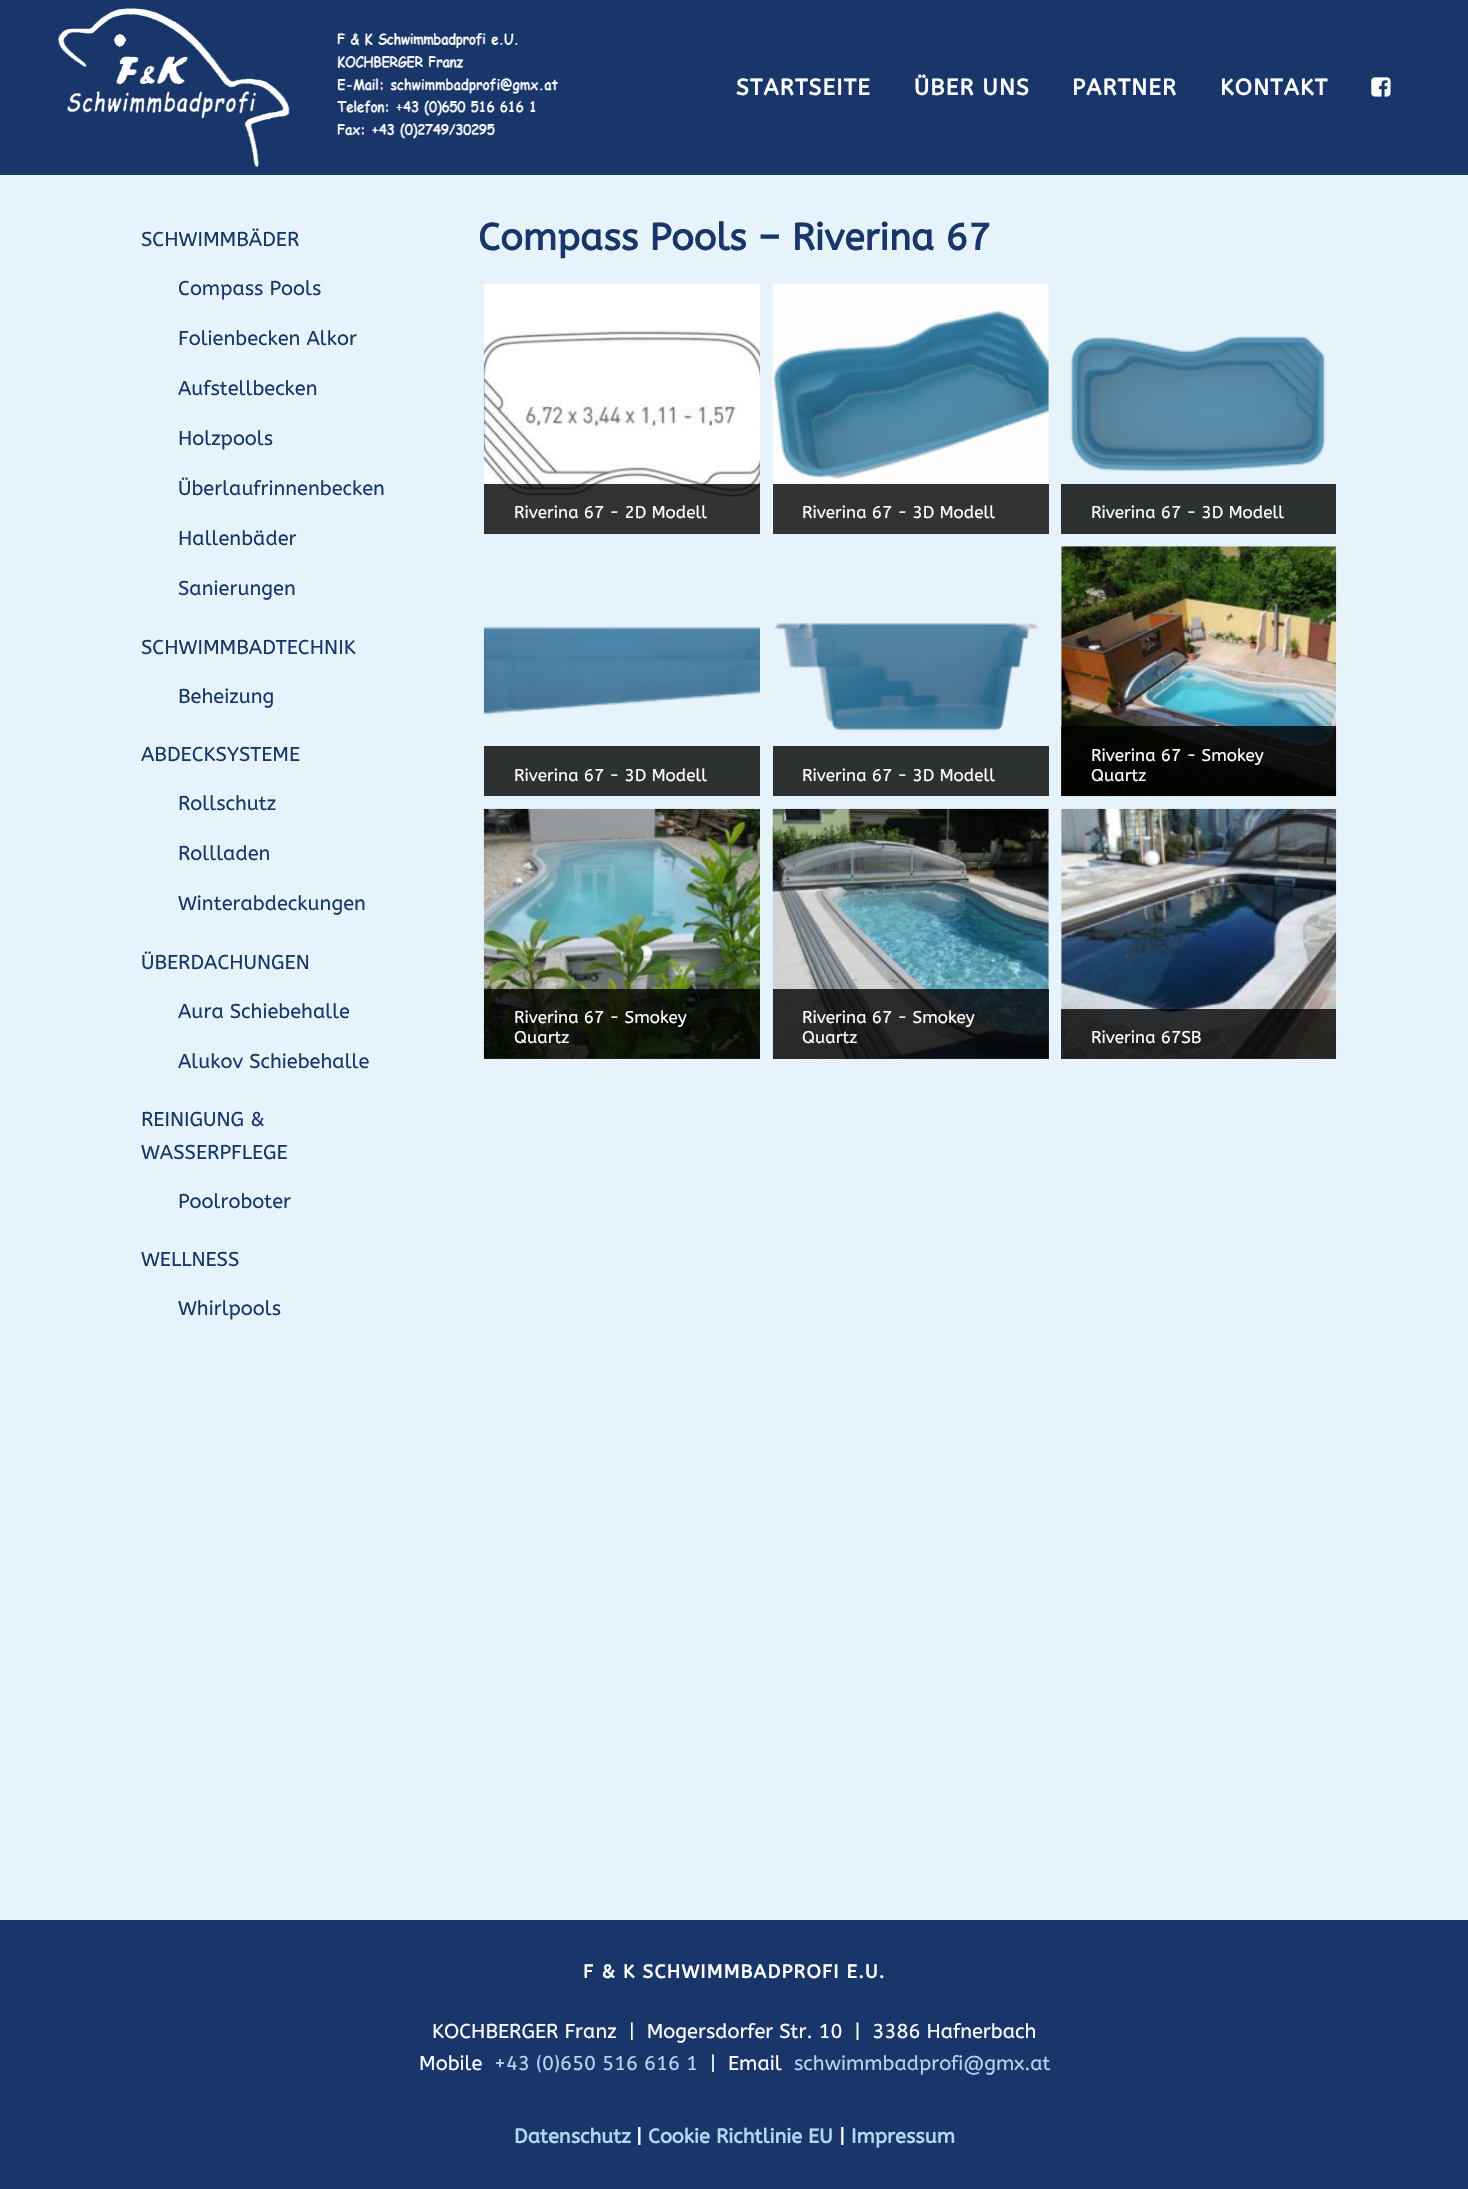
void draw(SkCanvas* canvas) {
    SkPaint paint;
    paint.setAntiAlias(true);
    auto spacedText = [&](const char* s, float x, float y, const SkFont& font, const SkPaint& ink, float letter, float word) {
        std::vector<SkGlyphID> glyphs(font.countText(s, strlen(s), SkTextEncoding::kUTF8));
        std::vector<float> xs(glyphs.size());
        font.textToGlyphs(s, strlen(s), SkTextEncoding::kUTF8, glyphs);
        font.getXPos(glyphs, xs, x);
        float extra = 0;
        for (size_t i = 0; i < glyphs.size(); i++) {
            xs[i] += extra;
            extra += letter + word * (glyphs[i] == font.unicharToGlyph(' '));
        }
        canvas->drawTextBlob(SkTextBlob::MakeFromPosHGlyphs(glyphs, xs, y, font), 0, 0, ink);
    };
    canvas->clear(0xFFE6F3FB);
    paint.setColor(0xFF18366A);
    canvas->drawRect(SkRect::MakeXYWH(0, 0, 1468, 175), paint);
    canvas->drawImageRect(SkImages::DeferredFromEncodedData(SkData::MakeFromFileName("img1.png")), SkRect::MakeXYWH(58, 8, 501, 159), SkSamplingOptions());
    SkFont font1(fontMgr->matchFamilyStyle("ABeeZee", SkFontStyle::Bold()), 22.5f);
    font1.setSubpixel(true);
    paint.setColor(0xFFFFFFFF);
    spacedText("STARTSEITE", 736, 95, font1, paint, 1.25f, 0);
    spacedText("ÜBER UNS", 914, 95, font1, paint, 1.25f, 0);
    spacedText("PARTNER", 1072, 95, font1, paint, 1.25f, 0);
    spacedText("KONTAKT", 1220, 95, font1, paint, 1.25f, 0);
    canvas->drawImageRect(SkImages::DeferredFromEncodedData(SkData::MakeFromFileName("img2.png")), SkRect::MakeXYWH(1371, 77, 20, 20), SkSamplingOptions());
    SkFont font2(fontMgr->matchFamilyStyle("ABeeZee", SkFontStyle::Normal()), 20);
    font2.setSubpixel(true);
    paint.setColor(0xFF18366A);
    canvas->drawString("SCHWIMMBÄDER", 141, 246, font2, paint);
    canvas->drawString("Compass Pools", 178, 295, font2, paint);
    canvas->drawString("Folienbecken Alkor", 178, 345, font2, paint);
    canvas->drawString("Aufstellbecken", 178, 395, font2, paint);
    canvas->drawString("Holzpools", 178, 445, font2, paint);
    canvas->drawString("Überlaufrinnenbecken", 178, 495, font2, paint);
    canvas->drawString("Hallenbäder", 178, 545, font2, paint);
    canvas->drawString("Sanierungen", 178, 595, font2, paint);
    canvas->drawString("SCHWIMMBADTECHNIK", 141, 654, font2, paint);
    canvas->drawString("Beheizung", 178, 703, font2, paint);
    canvas->drawString("ABDECKSYSTEME", 141, 761, font2, paint);
    canvas->drawString("Rollschutz", 178, 810, font2, paint);
    canvas->drawString("Rollladen", 178, 860, font2, paint);
    canvas->drawString("Winterabdeckungen", 178, 910, font2, paint);
    canvas->drawString("ÜBERDACHUNGEN", 141, 969, font2, paint);
    canvas->drawString("Aura Schiebehalle", 178, 1018, font2, paint);
    canvas->drawString("Alukov Schiebehalle", 178, 1068, font2, paint);
    canvas->drawString("REINIGUNG &", 141, 1126, font2, paint);
    canvas->drawString("WASSERPFLEGE", 141, 1159, font2, paint);
    canvas->drawString("Poolroboter", 178, 1208, font2, paint);
    canvas->drawString("WELLNESS", 141, 1266, font2, paint);
    canvas->drawString("Whirlpools", 178, 1315, font2, paint);
    SkFont font3(fontMgr->matchFamilyStyle("ABeeZee", SkFontStyle::Bold()), 37.5f);
    font3.setSubpixel(true);
    canvas->drawString("Compass Pools – Riverina 67", 478, 250, font3, paint);
    canvas->drawImageRect(SkImages::DeferredFromEncodedData(SkData::MakeFromFileName("img3.png")), SkRect::MakeXYWH(483, 284, 277, 250), SkSamplingOptions());
    paint.setColor(0xCC000000);
    canvas->drawRect(SkRect::MakeXYWH(484, 484, 276, 50), paint);
    SkFont font4(fontMgr->matchFamilyStyle("ABeeZee", SkFontStyle::Normal()), 17);
    font4.setSubpixel(true);
    paint.setColor(0xFFFFFFFF);
    canvas->drawString("Riverina 67 - 2D Modell", 514, 518, font4, paint);
    canvas->drawImageRect(SkImages::DeferredFromEncodedData(SkData::MakeFromFileName("img4.png")), SkRect::MakeXYWH(772, 284, 277, 250), SkSamplingOptions());
    paint.setColor(0xCC000000);
    canvas->drawRect(SkRect::MakeXYWH(773, 484, 276, 50), paint);
    paint.setColor(0xFFFFFFFF);
    canvas->drawString("Riverina 67 - 3D Modell", 802, 518, font4, paint);
    canvas->drawImageRect(SkImages::DeferredFromEncodedData(SkData::MakeFromFileName("img5.png")), SkRect::MakeXYWH(1070, 336, 256, 136), SkSamplingOptions());
    paint.setColor(0xFF2E3132);
    canvas->drawRect(SkRect::MakeXYWH(1061, 484, 275, 50), paint);
    paint.setColor(0xFFFFFFFF);
    canvas->drawString("Riverina 67 - 3D Modell", 1091, 518, font4, paint);
    canvas->drawImageRect(SkImages::DeferredFromEncodedData(SkData::MakeFromFileName("img6.png")), SkRect::MakeXYWH(483, 626, 277, 89), SkSamplingOptions());
    paint.setColor(0xFF2E3132);
    canvas->drawRect(SkRect::MakeXYWH(484, 746, 276, 50), paint);
    paint.setColor(0xFFFFFFFF);
    canvas->drawString("Riverina 67 - 3D Modell", 514, 781, font4, paint);
    canvas->drawImageRect(SkImages::DeferredFromEncodedData(SkData::MakeFromFileName("img7.png")), SkRect::MakeXYWH(774, 623, 265, 108), SkSamplingOptions());
    paint.setColor(0xFF2E3132);
    canvas->drawRect(SkRect::MakeXYWH(773, 746, 276, 50), paint);
    paint.setColor(0xFFFFFFFF);
    canvas->drawString("Riverina 67 - 3D Modell", 802, 781, font4, paint);
    canvas->drawImageRect(SkImages::DeferredFromEncodedData(SkData::MakeFromFileName("img8.png")), SkRect::MakeXYWH(1061, 546, 276, 251), SkSamplingOptions());
    paint.setColor(0xCC000000);
    canvas->drawRect(SkRect::MakeXYWH(1061, 726, 275, 70), paint);
    paint.setColor(0xFFFFFFFF);
    canvas->drawString("Riverina 67 - Smokey", 1091, 761, font4, paint);
    canvas->drawString("Quartz", 1091, 781, font4, paint);
    canvas->drawImageRect(SkImages::DeferredFromEncodedData(SkData::MakeFromFileName("img9.png")), SkRect::MakeXYWH(483, 808, 277, 251), SkSamplingOptions());
    paint.setColor(0xCC000000);
    canvas->drawRect(SkRect::MakeXYWH(484, 989, 276, 70), paint);
    paint.setColor(0xFFFFFFFF);
    canvas->drawString("Riverina 67 - Smokey", 514, 1023, font4, paint);
    canvas->drawString("Quartz", 514, 1043, font4, paint);
    canvas->drawImageRect(SkImages::DeferredFromEncodedData(SkData::MakeFromFileName("img10.png")), SkRect::MakeXYWH(772, 808, 277, 251), SkSamplingOptions());
    paint.setColor(0xCC000000);
    canvas->drawRect(SkRect::MakeXYWH(773, 989, 276, 70), paint);
    paint.setColor(0xFFFFFFFF);
    canvas->drawString("Riverina 67 - Smokey", 802, 1023, font4, paint);
    canvas->drawString("Quartz", 802, 1043, font4, paint);
    canvas->drawImageRect(SkImages::DeferredFromEncodedData(SkData::MakeFromFileName("img11.png")), SkRect::MakeXYWH(1061, 808, 276, 251), SkSamplingOptions());
    paint.setColor(0xCC000000);
    canvas->drawRect(SkRect::MakeXYWH(1061, 1009, 275, 50), paint);
    paint.setColor(0xFFFFFFFF);
    canvas->drawString("Riverina 67SB", 1091, 1043, font4, paint);
    paint.setColor(0xFF18366A);
    canvas->drawRect(SkRect::MakeXYWH(0, 1920, 1468, 269), paint);
    SkFont font5(fontMgr->matchFamilyStyle("ABeeZee", SkFontStyle::Bold()), 18.75f);
    font5.setSubpixel(true);
    paint.setColor(0xFFFFFFFF);
    spacedText("F & K SCHWIMMBADPROFI E.U.", 583, 1978, font5, paint, 1.25f, 0);
    canvas->drawString("KOCHBERGER Franz  |  Mogersdorfer Str. 10  |  3386 Hafnerbach", 432, 2038, font2, paint);
    canvas->drawString("Mobile", 419, 2070, font2, paint);
    paint.setColor(0xFFB2D7F1);
    canvas->drawString("+43 (0)650 516 616 1", 494, 2070, font2, paint);
    paint.setColor(0xFFFFFFFF);
    canvas->drawString("|  Email", 710, 2070, font2, paint);
    paint.setColor(0xFFB2D7F1);
    canvas->drawString("schwimmbadprofi@gmx.at", 794, 2070, font2, paint);
    SkFont font6(fontMgr->matchFamilyStyle("ABeeZee", SkFontStyle::Bold()), 20);
    font6.setSubpixel(true);
    canvas->drawString("Datenschutz", 514, 2143, font6, paint);
    paint.setColor(0xFFFFFFFF);
    canvas->drawString("|", 636, 2143, font6, paint);
    paint.setColor(0xFFB2D7F1);
    canvas->drawString("Cookie Richtlinie EU", 648, 2143, font6, paint);
    paint.setColor(0xFFFFFFFF);
    canvas->drawString("|", 839, 2143, font6, paint);
    paint.setColor(0xFFB2D7F1);
    canvas->drawString("Impressum", 851, 2143, font6, paint);
}
